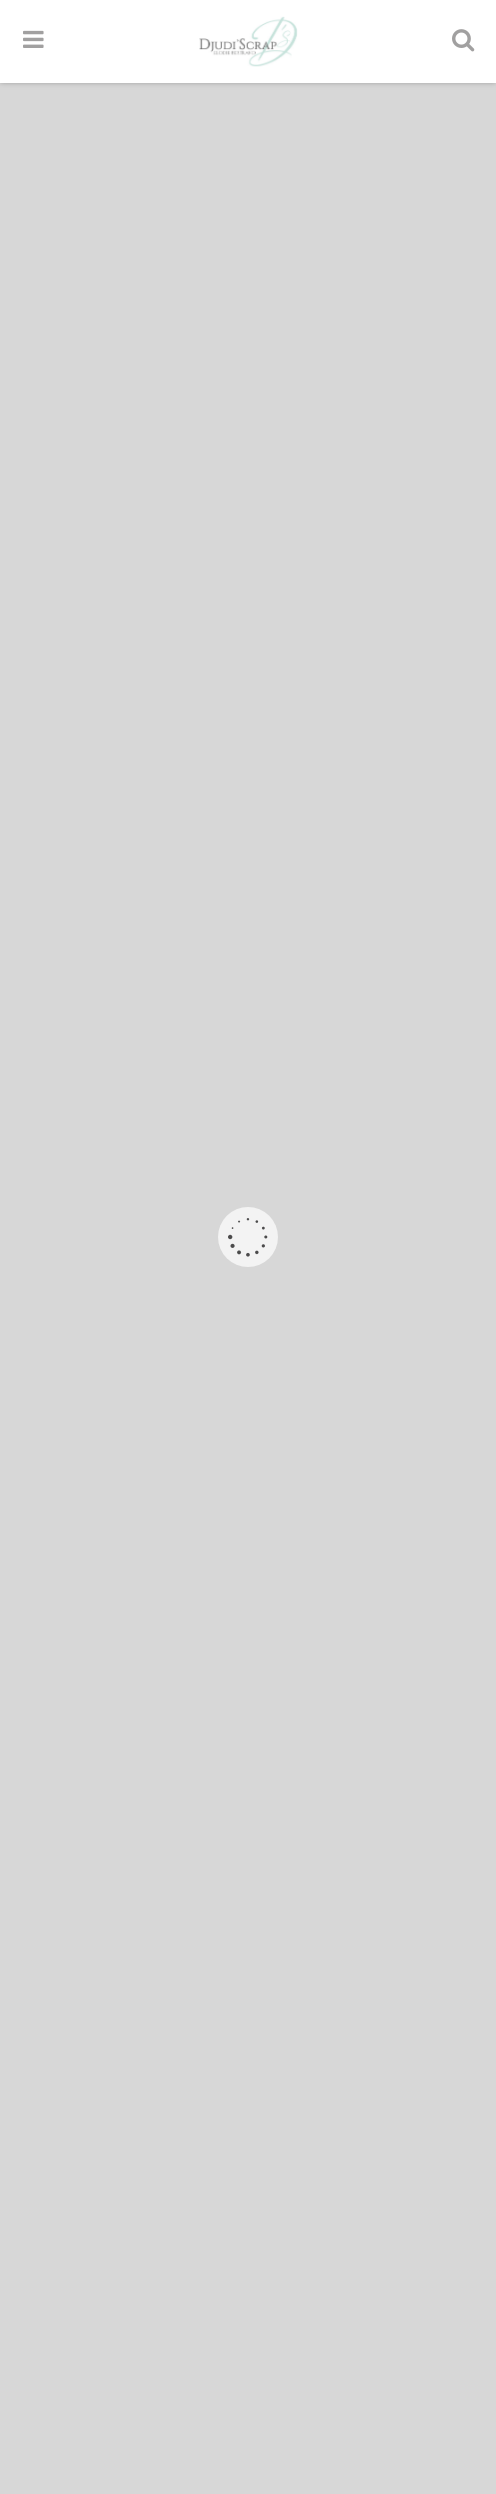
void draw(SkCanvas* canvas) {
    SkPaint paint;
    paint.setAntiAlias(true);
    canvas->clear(0xFFD7D7D7);
    paint.setColor(0x40000000);
    paint.setMaskFilter(SkMaskFilter::MakeBlur(kNormal_SkBlurStyle, 2.5f));
    canvas->drawRect(SkRect::MakeXYWH(0, 0, 496, 83), paint);
    paint.setMaskFilter(nullptr);
    paint.setColor(0xFFFFFFFF);
    canvas->drawRect(SkRect::MakeXYWH(0, 0, 496, 83), paint);
    canvas->drawImageRect(SkImages::DeferredFromEncodedData(SkData::MakeFromFileName("img1.png")), SkRect::MakeXYWH(23, 30, 21, 18), SkSamplingOptions());
    canvas->drawImageRect(SkImages::DeferredFromEncodedData(SkData::MakeFromFileName("img2.png")), SkRect::MakeXYWH(199, 16, 99, 51), SkSamplingOptions());
    canvas->drawImageRect(SkImages::DeferredFromEncodedData(SkData::MakeFromFileName("img3.png")), SkRect::MakeXYWH(452, 29, 23, 23), SkSamplingOptions());
    paint.setColor(0xFFF3F3F3);
    canvas->drawCircle(248, 1237, 30, paint);
    canvas->drawImageRect(SkImages::DeferredFromEncodedData(SkData::MakeFromFileName("img4.png")), SkRect::MakeXYWH(228, 1218, 40, 39), SkSamplingOptions());
}
